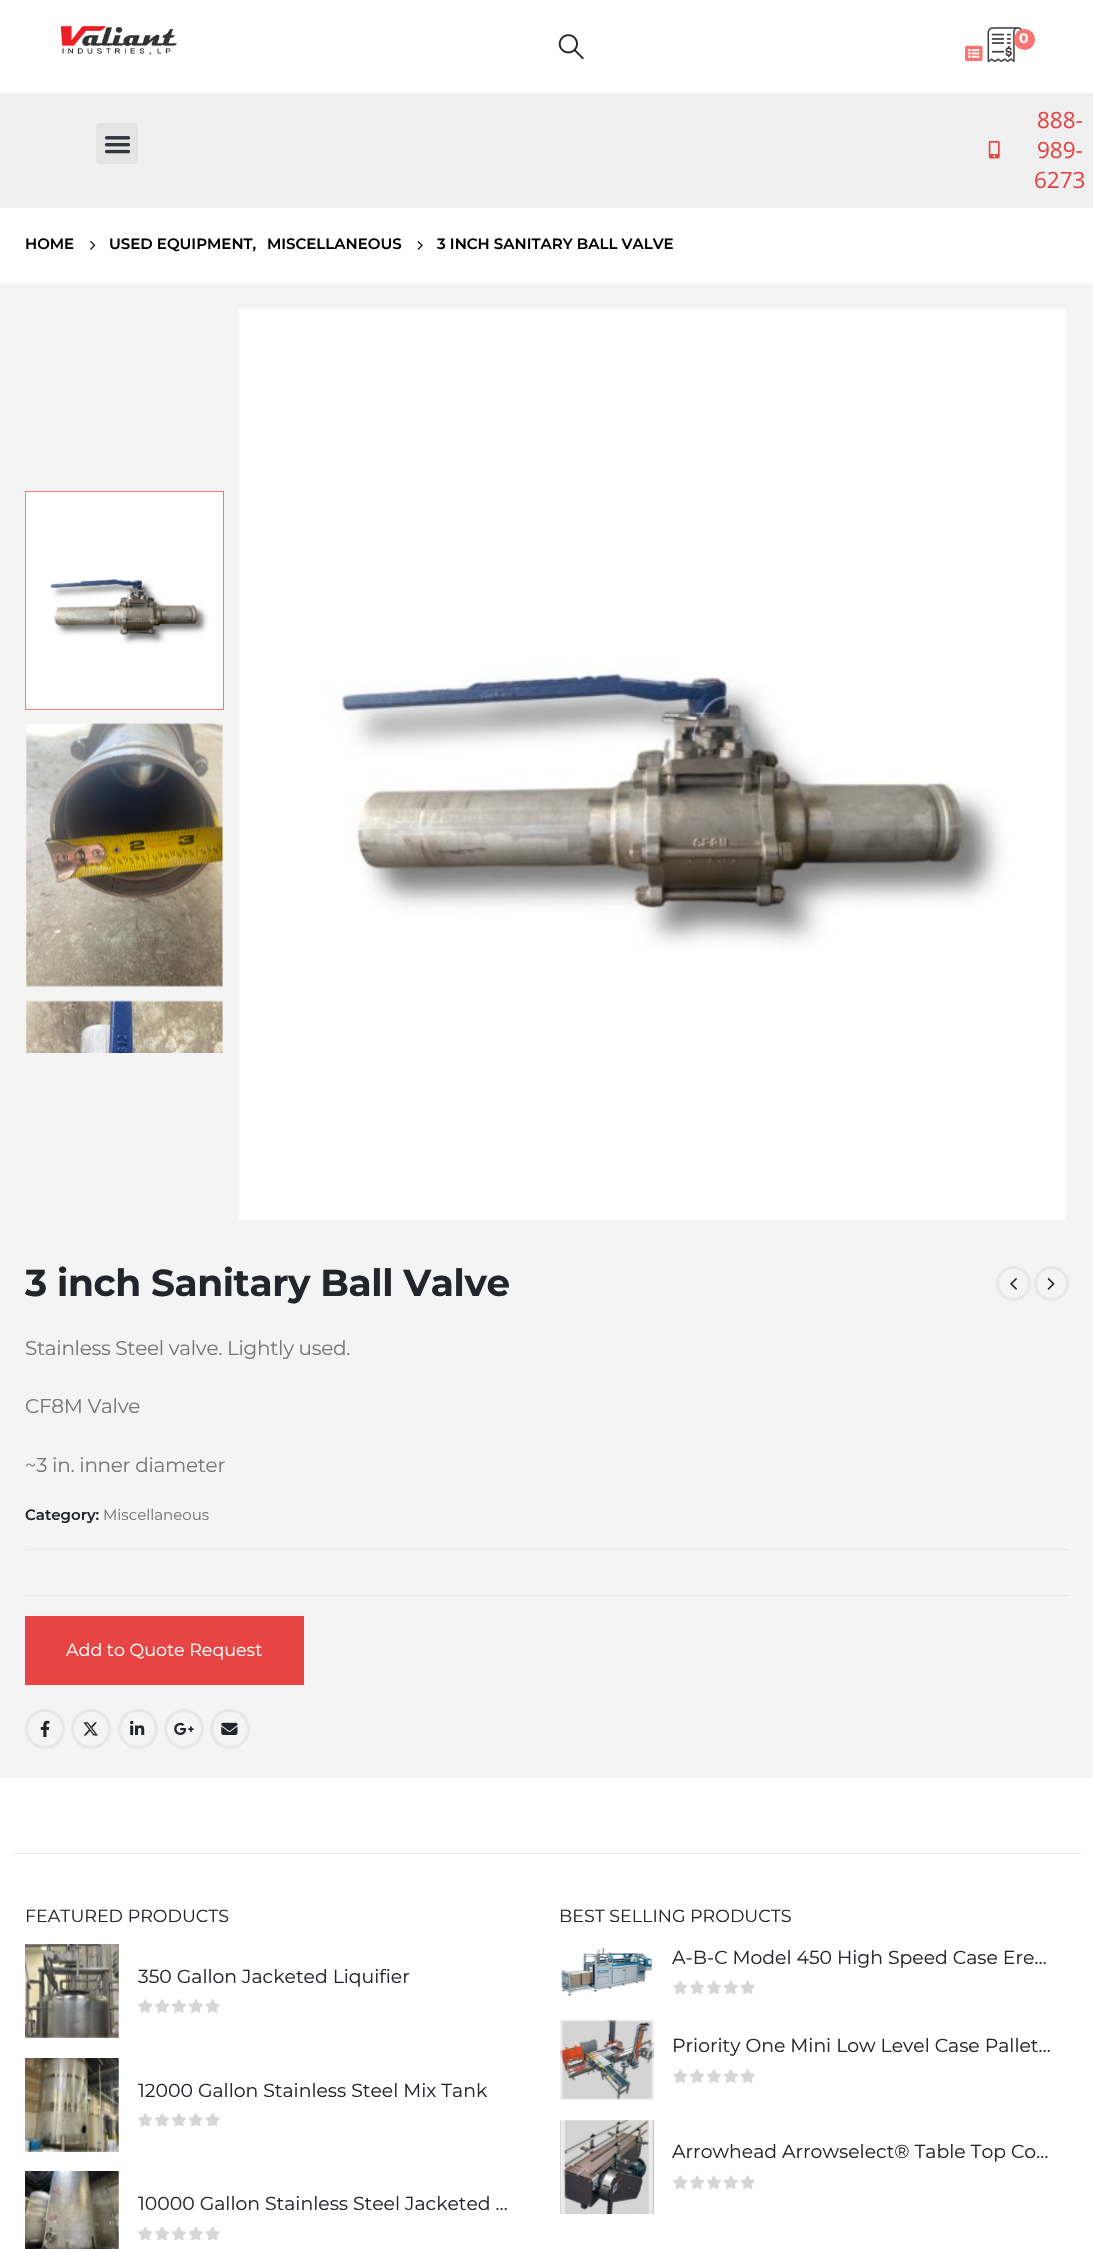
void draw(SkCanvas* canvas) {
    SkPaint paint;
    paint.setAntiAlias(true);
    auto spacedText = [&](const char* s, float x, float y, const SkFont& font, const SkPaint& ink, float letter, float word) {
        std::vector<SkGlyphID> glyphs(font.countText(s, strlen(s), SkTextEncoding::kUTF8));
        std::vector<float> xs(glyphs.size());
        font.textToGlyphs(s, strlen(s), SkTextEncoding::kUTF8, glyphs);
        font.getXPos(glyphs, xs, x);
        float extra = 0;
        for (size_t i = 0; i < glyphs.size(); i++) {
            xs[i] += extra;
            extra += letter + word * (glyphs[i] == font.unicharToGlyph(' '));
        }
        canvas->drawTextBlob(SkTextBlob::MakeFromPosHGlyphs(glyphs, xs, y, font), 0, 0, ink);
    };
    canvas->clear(0xFFFFFFFF);
    canvas->drawImageRect(SkImages::DeferredFromEncodedData(SkData::MakeFromFileName("img1.png")), SkRect::MakeXYWH(60, 26, 117, 29), SkSamplingOptions());
    canvas->drawImageRect(SkImages::DeferredFromEncodedData(SkData::MakeFromFileName("img2.png")), SkRect::MakeXYWH(558, 34, 26, 26), SkSamplingOptions());
    canvas->drawImageRect(SkImages::DeferredFromEncodedData(SkData::MakeFromFileName("img3.png")), SkRect::MakeXYWH(987, 27, 35, 36), SkSamplingOptions());
    paint.setColor(0xFFFF7272);
    canvas->drawCircle(1024.5f, 39.5f, 10.5f, paint);
    SkFont font1(fontMgr->matchFamilyStyle("Montserrat", SkFontStyle::Bold()), 14);
    font1.setSubpixel(true);
    paint.setColor(0xFFFFFFFF);
    canvas->drawString("0", 1019, 43, font1, paint);
    canvas->drawImageRect(SkImages::DeferredFromEncodedData(SkData::MakeFromFileName("img4.png")), SkRect::MakeXYWH(965, 45, 18, 17), SkSamplingOptions());
    paint.setColor(0xFFF0F0F0);
    canvas->drawRect(SkRect::MakeXYWH(0, 93, 1093, 115), paint);
    paint.setColor(0xFFE4E4E4);
    canvas->drawRoundRect(SkRect::MakeXYWH(96, 123, 42, 41), 4, 4, paint);
    canvas->drawImageRect(SkImages::DeferredFromEncodedData(SkData::MakeFromFileName("img5.png")), SkRect::MakeXYWH(104, 136, 27, 18), SkSamplingOptions());
    canvas->drawImageRect(SkImages::DeferredFromEncodedData(SkData::MakeFromFileName("img6.png")), SkRect::MakeXYWH(988, 140, 12, 19), SkSamplingOptions());
    SkFont font2(fontMgr->matchFamilyStyle("Open Sans", SkFontStyle::Normal()), 22.5f);
    font2.setSubpixel(true);
    paint.setColor(0xFFE64343);
    canvas->drawString("888-", 1037, 128, font2, paint);
    canvas->drawString("989-", 1037, 158, font2, paint);
    canvas->drawString("6273", 1034, 188, font2, paint);
    SkFont font3(fontMgr->matchFamilyStyle("Montserrat", SkFontStyle(600, SkFontStyle::kNormal_Width, SkFontStyle::kUpright_Slant)), 15);
    font3.setSubpixel(true);
    paint.setColor(0xFF000000);
    canvas->drawString("HOME", 25, 249, font3, paint);
    canvas->drawImageRect(SkImages::DeferredFromEncodedData(SkData::MakeFromFileName("img7.png")), SkRect::MakeXYWH(90, 240, 6, 10), SkSamplingOptions());
    canvas->drawString("USED EQUIPMENT,", 109, 249, font3, paint);
    canvas->drawString("MISCELLANEOUS", 267, 249, font3, paint);
    canvas->drawImageRect(SkImages::DeferredFromEncodedData(SkData::MakeFromFileName("img8.png")), SkRect::MakeXYWH(417, 240, 6, 10), SkSamplingOptions());
    canvas->drawString("3 INCH SANITARY BALL VALVE", 437, 249, font3, paint);
    paint.setColor(0xFFF4F4F4);
    canvas->drawRect(SkRect::MakeXYWH(0, 283, 1093, 1495), paint);
    paint.setStyle(SkPaint::kStroke_Style);
    paint.setStrokeWidth(1);
    paint.setColor(0xFFFF7272);
    canvas->drawRect(SkRect::MakeXYWH(25.5f, 491.5f, 198, 218), paint);
    canvas->drawImageRect(SkImages::DeferredFromEncodedData(SkData::MakeFromFileName("img9.png")), SkRect::MakeXYWH(25, 492, 198, 218), SkSamplingOptions());
    canvas->drawImageRect(SkImages::DeferredFromEncodedData(SkData::MakeFromFileName("img10.png")), SkRect::MakeXYWH(26, 723, 197, 264), SkSamplingOptions());
    canvas->drawImageRect(SkImages::DeferredFromEncodedData(SkData::MakeFromFileName("img11.png")), SkRect::MakeXYWH(26, 1000, 197, 53), SkSamplingOptions());
    canvas->drawImageRect(SkImages::DeferredFromEncodedData(SkData::MakeFromFileName("img12.png")), SkRect::MakeXYWH(239, 309, 827, 911), SkSamplingOptions());
    SkFont font4(fontMgr->matchFamilyStyle("Montserrat", SkFontStyle::Bold()), 37.5f);
    font4.setSubpixel(true);
    paint.setStyle(SkPaint::kFill_Style);
    paint.setColor(0xFF222529);
    spacedText("3 inch Sanitary Ball Valve", 25, 1296, font4, paint, -0.4f, 0);
    paint.setStyle(SkPaint::kStroke_Style);
    paint.setStrokeWidth(3);
    paint.setColor(0xFFE7E7E7);
    canvas->drawCircle(1013.5f, 1283.5f, 16, paint);
    canvas->drawImageRect(SkImages::DeferredFromEncodedData(SkData::MakeFromFileName("img13.png")), SkRect::MakeXYWH(1010, 1277, 7, 13), SkSamplingOptions());
    canvas->drawCircle(1051.5f, 1283.5f, 16, paint);
    canvas->drawImageRect(SkImages::DeferredFromEncodedData(SkData::MakeFromFileName("img14.png")), SkRect::MakeXYWH(1047, 1277, 8, 13), SkSamplingOptions());
    SkFont font5(fontMgr->matchFamilyStyle("Montserrat", SkFontStyle::Normal()), 20);
    font5.setSubpixel(true);
    paint.setStyle(SkPaint::kFill_Style);
    paint.setColor(0xFF777777);
    spacedText("Stainless Steel valve. Lightly used.", 25, 1355, font5, paint, -0.3f, 0);
    spacedText("CF8M Valve", 25, 1413, font5, paint, -0.3f, 0);
    spacedText("~3 in. inner diameter", 25, 1472, font5, paint, -0.3f, 0);
    paint.setColor(0xFF222529);
    canvas->drawString("Category:", 25, 1520, font3, paint);
    SkFont font6(fontMgr->matchFamilyStyle("Montserrat", SkFontStyle::Normal()), 15);
    font6.setSubpixel(true);
    paint.setColor(0xFF777777);
    canvas->drawString("Miscellaneous", 103, 1520, font6, paint);
    paint.setColor(0xFFE7E7E7);
    canvas->drawRect(SkRect::MakeXYWH(25, 1549, 1044, 1), paint);
    canvas->drawRect(SkRect::MakeXYWH(25, 1595, 1044, 1), paint);
    paint.setColor(0xFFE84444);
    canvas->drawRect(SkRect::MakeXYWH(25, 1616, 279, 69), paint);
    SkFont font7(fontMgr->matchFamilyStyle("Montserrat", SkFontStyle::Normal()), 17.5f);
    font7.setSubpixel(true);
    paint.setColor(0xFFFFFFFF);
    canvas->drawString("Add to Quote Request", 66, 1656, font7, paint);
    paint.setStyle(SkPaint::kStroke_Style);
    paint.setColor(0xFFE7E7E7);
    canvas->drawCircle(45, 1729, 18.5f, paint);
    canvas->drawImageRect(SkImages::DeferredFromEncodedData(SkData::MakeFromFileName("img15.png")), SkRect::MakeXYWH(40, 1720, 10, 17), SkSamplingOptions());
    canvas->drawCircle(91, 1729, 18.5f, paint);
    canvas->drawImageRect(SkImages::DeferredFromEncodedData(SkData::MakeFromFileName("img16.png")), SkRect::MakeXYWH(83, 1722, 15, 14), SkSamplingOptions());
    canvas->drawCircle(138, 1729, 18.5f, paint);
    canvas->drawImageRect(SkImages::DeferredFromEncodedData(SkData::MakeFromFileName("img17.png")), SkRect::MakeXYWH(130, 1720, 15, 15), SkSamplingOptions());
    canvas->drawCircle(184, 1729, 18.5f, paint);
    canvas->drawImageRect(SkImages::DeferredFromEncodedData(SkData::MakeFromFileName("img18.png")), SkRect::MakeXYWH(174, 1722, 20, 13), SkSamplingOptions());
    canvas->drawCircle(230, 1729, 18.5f, paint);
    canvas->drawImageRect(SkImages::DeferredFromEncodedData(SkData::MakeFromFileName("img19.png")), SkRect::MakeXYWH(221, 1722, 17, 13), SkSamplingOptions());
    paint.setStyle(SkPaint::kFill_Style);
    canvas->drawRect(SkRect::MakeXYWH(13, 1853, 1068, 1), paint);
    paint.setColor(0xFF222529);
    canvas->drawString("FEATURED PRODUCTS", 25, 1922, font7, paint);
    canvas->drawImageRect(SkImages::DeferredFromEncodedData(SkData::MakeFromFileName("img20.png")), SkRect::MakeXYWH(25, 1944, 94, 94), SkSamplingOptions());
    SkFont font8(fontMgr->matchFamilyStyle("Montserrat", SkFontStyle::Normal()), 18.85f);
    font8.setSubpixel(true);
    canvas->drawString("350 Gallon Jacketed Liquifier", 138, 1983, font8, paint);
    canvas->drawImageRect(SkImages::DeferredFromEncodedData(SkData::MakeFromFileName("img21.png")), SkRect::MakeXYWH(138, 1999, 82, 14), SkSamplingOptions());
    canvas->drawImageRect(SkImages::DeferredFromEncodedData(SkData::MakeFromFileName("img22.png")), SkRect::MakeXYWH(25, 2058, 94, 94), SkSamplingOptions());
    canvas->drawString("12000 Gallon Stainless Steel Mix Tank", 138, 2097, font8, paint);
    canvas->drawImageRect(SkImages::DeferredFromEncodedData(SkData::MakeFromFileName("img23.png")), SkRect::MakeXYWH(138, 2113, 82, 13), SkSamplingOptions());
    canvas->drawImageRect(SkImages::DeferredFromEncodedData(SkData::MakeFromFileName("img24.png")), SkRect::MakeXYWH(25, 2171, 94, 78), SkSamplingOptions());
    canvas->drawString("10000 Gallon Stainless Steel Jacketed …", 138, 2210, font8, paint);
    canvas->drawImageRect(SkImages::DeferredFromEncodedData(SkData::MakeFromFileName("img25.png")), SkRect::MakeXYWH(138, 2226, 82, 14), SkSamplingOptions());
    canvas->drawString("BEST SELLING PRODUCTS", 559, 1922, font7, paint);
    canvas->drawImageRect(SkImages::DeferredFromEncodedData(SkData::MakeFromFileName("img26.png")), SkRect::MakeXYWH(561, 1947, 92, 49), SkSamplingOptions());
    canvas->drawString("A-B-C Model 450 High Speed Case Ere…", 672, 1964, font8, paint);
    canvas->drawImageRect(SkImages::DeferredFromEncodedData(SkData::MakeFromFileName("img27.png")), SkRect::MakeXYWH(673, 1980, 82, 14), SkSamplingOptions());
    canvas->drawImageRect(SkImages::DeferredFromEncodedData(SkData::MakeFromFileName("img28.png")), SkRect::MakeXYWH(560, 2020, 94, 80), SkSamplingOptions());
    canvas->drawString("Priority One Mini Low Level Case Pallet…", 672, 2052, font8, paint);
    canvas->drawImageRect(SkImages::DeferredFromEncodedData(SkData::MakeFromFileName("img21.png")), SkRect::MakeXYWH(673, 2069, 82, 14), SkSamplingOptions());
    canvas->drawImageRect(SkImages::DeferredFromEncodedData(SkData::MakeFromFileName("img29.png")), SkRect::MakeXYWH(560, 2120, 94, 94), SkSamplingOptions());
    canvas->drawString("Arrowhead Arrowselect® Table Top Co…", 672, 2158, font8, paint);
    canvas->drawImageRect(SkImages::DeferredFromEncodedData(SkData::MakeFromFileName("img27.png")), SkRect::MakeXYWH(673, 2175, 82, 14), SkSamplingOptions());
}
